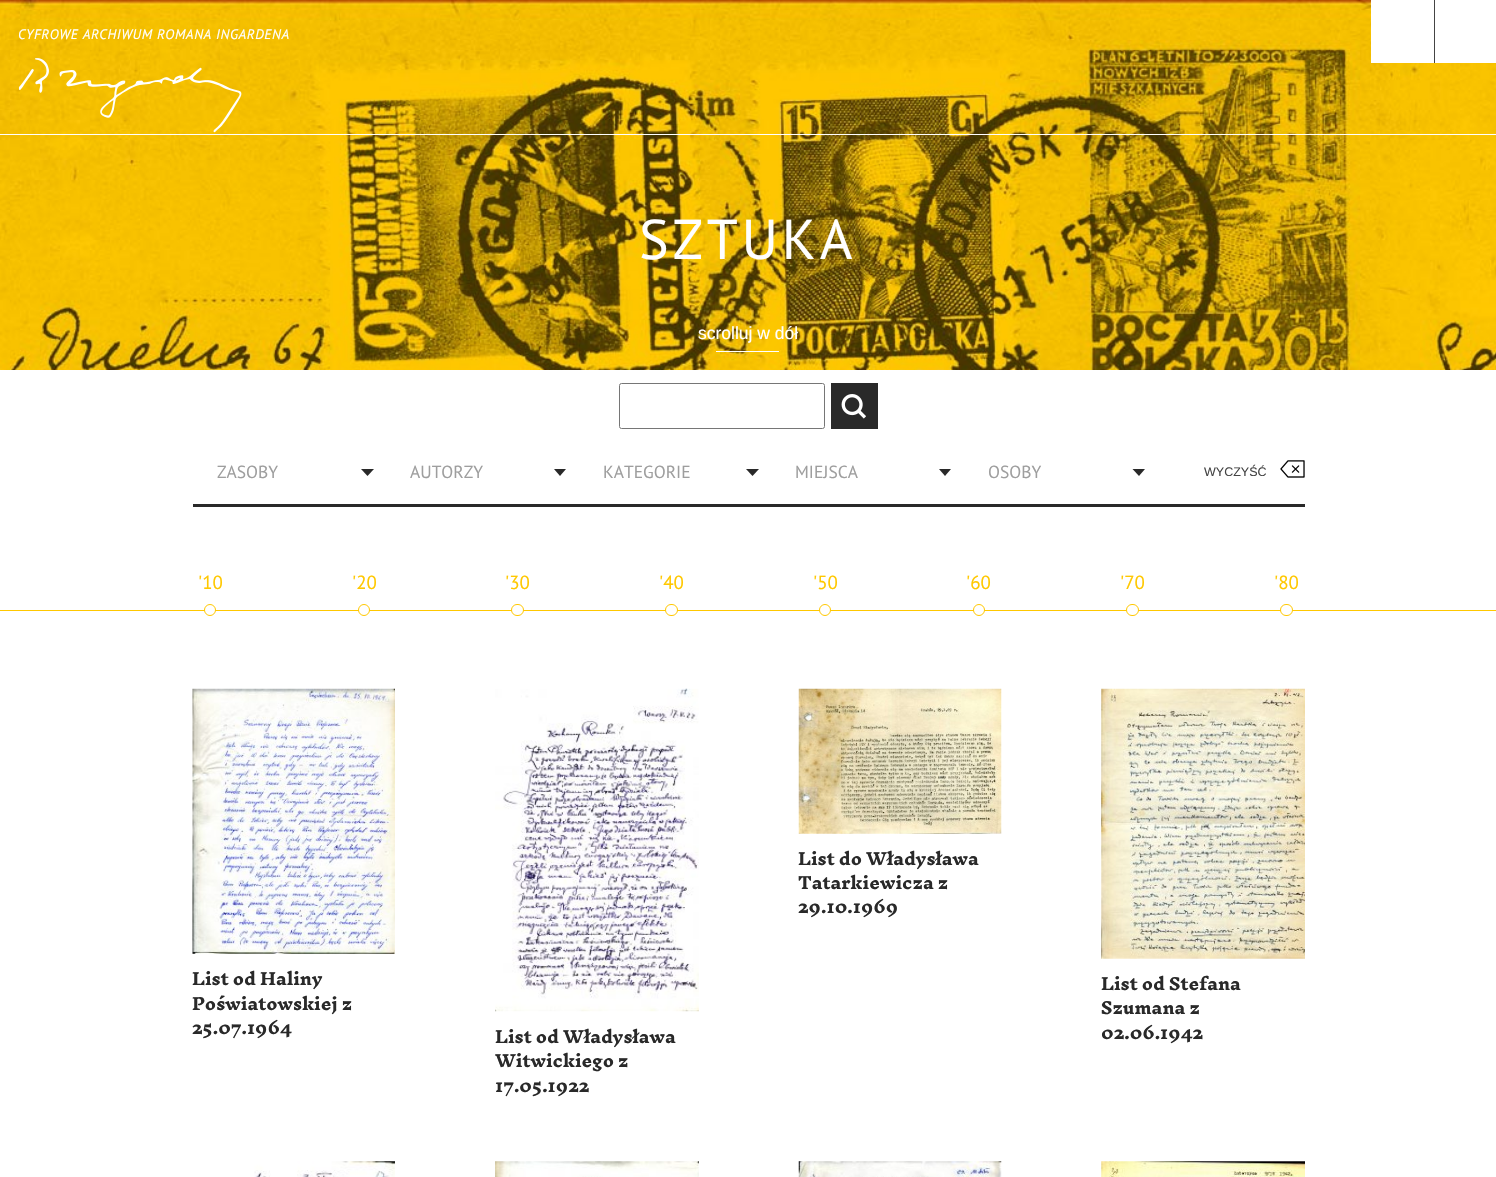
void draw(SkCanvas* canvas) {
    SkPaint paint;
    paint.setAntiAlias(true);
    auto spacedText = [&](const char* s, float x, float y, const SkFont& font, const SkPaint& ink, float letter, float word) {
        std::vector<SkGlyphID> glyphs(font.countText(s, strlen(s), SkTextEncoding::kUTF8));
        std::vector<float> xs(glyphs.size());
        font.textToGlyphs(s, strlen(s), SkTextEncoding::kUTF8, glyphs);
        font.getXPos(glyphs, xs, x);
        float extra = 0;
        for (size_t i = 0; i < glyphs.size(); i++) {
            xs[i] += extra;
            extra += letter + word * (glyphs[i] == font.unicharToGlyph(' '));
        }
        canvas->drawTextBlob(SkTextBlob::MakeFromPosHGlyphs(glyphs, xs, y, font), 0, 0, ink);
    };
    canvas->clear(0xFFFFFFFF);
    canvas->drawImageRect(SkImages::DeferredFromEncodedData(SkData::MakeFromFileName("img1.png")), SkRect::MakeXYWH(0, 0, 1496, 370), SkSamplingOptions());
    paint.setColor(0xFFFFFFFF);
    canvas->drawRect(SkRect::MakeXYWH(0, 134, 1496, 1), paint);
    SkFont font1(fontMgr->matchFamilyStyle("PT Sans", SkFontStyle::Italic()), 13.75f);
    font1.setSubpixel(true);
    spacedText("CYFROWE ARCHIWUM ROMANA INGARDENA", 18, 39, font1, paint, 0.6f, 0);
    canvas->drawImageRect(SkImages::DeferredFromEncodedData(SkData::MakeFromFileName("img2.png")), SkRect::MakeXYWH(18, 58, 224, 75), SkSamplingOptions());
    canvas->drawRect(SkRect::MakeXYWH(1371, 0, 63, 63), paint);
    canvas->drawRect(SkRect::MakeXYWH(1435, 0, 61, 63), paint);
    paint.setColor(0xFF444444);
    canvas->drawRect(SkRect::MakeXYWH(1434, 0, 1, 63), paint);
    SkFont font2(fontMgr->matchFamilyStyle("PT Sans", SkFontStyle::Normal()), 56);
    font2.setSubpixel(true);
    paint.setColor(0xFFFFFFFF);
    spacedText("SZTUKA", 639, 259, font2, paint, 3.75f, 0);
    SkFont font3(fontMgr->matchFamilyStyle("Liberation Sans", SkFontStyle::Normal()), 17.5f);
    font3.setSubpixel(true);
    canvas->drawString("scrolluj w dół", 698, 339, font3, paint);
    canvas->drawRect(SkRect::MakeXYWH(716, 351, 63, 1), paint);
    paint.setStyle(SkPaint::kStroke_Style);
    paint.setStrokeWidth(1);
    paint.setColor(0xFF767676);
    canvas->drawRoundRect(SkRect::MakeXYWH(619.5f, 383.5f, 205, 45), 2, 2, paint);
    paint.setStyle(SkPaint::kFill_Style);
    paint.setColor(0xFF292929);
    canvas->drawRect(SkRect::MakeXYWH(831, 383, 47, 46), paint);
    canvas->drawImageRect(SkImages::DeferredFromEncodedData(SkData::MakeFromFileName("img3.png")), SkRect::MakeXYWH(841, 394, 25, 25), SkSamplingOptions());
    canvas->drawRect(SkRect::MakeXYWH(193, 504, 1112, 3), paint);
    SkFont font4(fontMgr->matchFamilyStyle("PT Sans", SkFontStyle::Normal()), 17.5f);
    font4.setSubpixel(true);
    paint.setColor(0xFF9E9E9E);
    canvas->drawString("ZASOBY", 217, 478, font4, paint);
    paint.setColor(0xFF292929);
    canvas->drawPath(SkPathBuilder().moveTo(361, 469).lineTo(374, 469).lineTo(367.5f, 476).close().detach(), paint);
    paint.setColor(0xFF9E9E9E);
    canvas->drawString("AUTORZY", 410, 478, font4, paint);
    paint.setColor(0xFF292929);
    canvas->drawPath(SkPathBuilder().moveTo(554, 469).lineTo(566, 469).lineTo(560, 476).close().detach(), paint);
    paint.setColor(0xFF9E9E9E);
    canvas->drawString("KATEGORIE", 603, 478, font4, paint);
    paint.setColor(0xFF292929);
    canvas->drawPath(SkPathBuilder().moveTo(746, 469).lineTo(759, 469).lineTo(752.5f, 476).close().detach(), paint);
    paint.setColor(0xFF9E9E9E);
    canvas->drawString("MIEJSCA", 795, 478, font4, paint);
    paint.setColor(0xFF292929);
    canvas->drawPath(SkPathBuilder().moveTo(939, 469).lineTo(951, 469).lineTo(945, 476).close().detach(), paint);
    paint.setColor(0xFF9E9E9E);
    canvas->drawString("OSOBY", 988, 478, font4, paint);
    paint.setColor(0xFF292929);
    canvas->drawPath(SkPathBuilder().moveTo(1132.5f, 469).lineTo(1145, 469).lineTo(1139, 476).close().detach(), paint);
    SkFont font5(fontMgr->matchFamilyStyle("Liberation Sans", SkFontStyle::Normal()), 12.5f);
    font5.setSubpixel(true);
    paint.setColor(0xFF444444);
    canvas->drawString("WYCZYŚĆ", 1204, 476, font5, paint);
    canvas->drawImageRect(SkImages::DeferredFromEncodedData(SkData::MakeFromFileName("img4.png")), SkRect::MakeXYWH(1280, 460, 25, 18), SkSamplingOptions());
    paint.setColor(0xFFFFC800);
    canvas->drawRect(SkRect::MakeXYWH(0, 610, 1496, 1), paint);
    SkFont font6(fontMgr->matchFamilyStyle("PT Sans", SkFontStyle::Normal()), 19);
    font6.setSubpixel(true);
    canvas->drawString("'10", 198, 589, font6, paint);
    paint.setColor(0xFFFFFFFF);
    canvas->drawCircle(210, 610, 5.5f, paint);
    paint.setStyle(SkPaint::kStroke_Style);
    paint.setColor(0xFFFFC800);
    canvas->drawCircle(210, 610, 5.5f, paint);
    paint.setStyle(SkPaint::kFill_Style);
    canvas->drawString("'20", 352, 589, font6, paint);
    paint.setColor(0xFFFFFFFF);
    canvas->drawCircle(364, 610, 5.5f, paint);
    paint.setStyle(SkPaint::kStroke_Style);
    paint.setColor(0xFFFFC800);
    canvas->drawCircle(364, 610, 5.5f, paint);
    paint.setStyle(SkPaint::kFill_Style);
    canvas->drawString("'30", 505, 589, font6, paint);
    paint.setColor(0xFFFFFFFF);
    canvas->drawRoundRect(SkRect::MakeXYWH(511.5f, 604.5f, 12, 11), 5.5f, 5.5f, paint);
    paint.setStyle(SkPaint::kStroke_Style);
    paint.setColor(0xFFFFC800);
    canvas->drawRoundRect(SkRect::MakeXYWH(511.5f, 604.5f, 12, 11), 5.5f, 5.5f, paint);
    paint.setStyle(SkPaint::kFill_Style);
    canvas->drawString("'40", 659, 589, font6, paint);
    paint.setColor(0xFFFFFFFF);
    canvas->drawRoundRect(SkRect::MakeXYWH(665.5f, 604.5f, 12, 11), 5.5f, 5.5f, paint);
    paint.setStyle(SkPaint::kStroke_Style);
    paint.setColor(0xFFFFC800);
    canvas->drawRoundRect(SkRect::MakeXYWH(665.5f, 604.5f, 12, 11), 5.5f, 5.5f, paint);
    paint.setStyle(SkPaint::kFill_Style);
    canvas->drawString("'50", 813, 589, font6, paint);
    paint.setColor(0xFFFFFFFF);
    canvas->drawCircle(825, 610, 5.5f, paint);
    paint.setStyle(SkPaint::kStroke_Style);
    paint.setColor(0xFFFFC800);
    canvas->drawCircle(825, 610, 5.5f, paint);
    paint.setStyle(SkPaint::kFill_Style);
    canvas->drawString("'60", 966, 589, font6, paint);
    paint.setColor(0xFFFFFFFF);
    canvas->drawCircle(979, 610, 5.5f, paint);
    paint.setStyle(SkPaint::kStroke_Style);
    paint.setColor(0xFFFFC800);
    canvas->drawCircle(979, 610, 5.5f, paint);
    paint.setStyle(SkPaint::kFill_Style);
    canvas->drawString("'70", 1120, 589, font6, paint);
    paint.setColor(0xFFFFFFFF);
    canvas->drawRoundRect(SkRect::MakeXYWH(1126.5f, 604.5f, 12, 11), 5.5f, 5.5f, paint);
    paint.setStyle(SkPaint::kStroke_Style);
    paint.setColor(0xFFFFC800);
    canvas->drawRoundRect(SkRect::MakeXYWH(1126.5f, 604.5f, 12, 11), 5.5f, 5.5f, paint);
    paint.setStyle(SkPaint::kFill_Style);
    canvas->drawString("'80", 1274, 589, font6, paint);
    paint.setColor(0xFFFFFFFF);
    canvas->drawRoundRect(SkRect::MakeXYWH(1280.5f, 604.5f, 12, 11), 5.5f, 5.5f, paint);
    paint.setStyle(SkPaint::kStroke_Style);
    paint.setColor(0xFFFFC800);
    canvas->drawRoundRect(SkRect::MakeXYWH(1280.5f, 604.5f, 12, 11), 5.5f, 5.5f, paint);
    canvas->drawImageRect(SkImages::DeferredFromEncodedData(SkData::MakeFromFileName("img5.png")), SkRect::MakeXYWH(798, 688, 204, 146), SkSamplingOptions());
    SkFont font7(fontMgr->matchFamilyStyle("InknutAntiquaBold", SkFontStyle::Bold()), 16.25f);
    font7.setSubpixel(true);
    paint.setStyle(SkPaint::kFill_Style);
    paint.setColor(0xFF292929);
    canvas->drawString("List do Władysława", 798, 865, font7, paint);
    canvas->drawString("Tatarkiewicza z", 798, 889, font7, paint);
    canvas->drawString("29.10.1969", 798, 913, font7, paint);
    canvas->drawImageRect(SkImages::DeferredFromEncodedData(SkData::MakeFromFileName("img6.png")), SkRect::MakeXYWH(192, 688, 203, 266), SkSamplingOptions());
    canvas->drawString("List od Haliny", 192, 985, font7, paint);
    canvas->drawString("Poświatowskiej z", 192, 1010, font7, paint);
    canvas->drawString("25.07.1964", 192, 1034, font7, paint);
    canvas->drawImageRect(SkImages::DeferredFromEncodedData(SkData::MakeFromFileName("img7.png")), SkRect::MakeXYWH(1101, 688, 204, 271), SkSamplingOptions());
    canvas->drawString("List od Stefana", 1101, 990, font7, paint);
    canvas->drawString("Szumana z", 1101, 1014, font7, paint);
    canvas->drawString("02.06.1942", 1101, 1039, font7, paint);
    canvas->drawImageRect(SkImages::DeferredFromEncodedData(SkData::MakeFromFileName("img8.png")), SkRect::MakeXYWH(495, 688, 204, 324), SkSamplingOptions());
    canvas->drawString("List od Władysława", 495, 1043, font7, paint);
    canvas->drawString("Witwickiego z", 495, 1067, font7, paint);
    canvas->drawString("17.05.1922", 495, 1092, font7, paint);
    canvas->drawImageRect(SkImages::DeferredFromEncodedData(SkData::MakeFromFileName("img9.png")), SkRect::MakeXYWH(254, 1161, 141, 16), SkSamplingOptions());
    canvas->drawImageRect(SkImages::DeferredFromEncodedData(SkData::MakeFromFileName("img10.png")), SkRect::MakeXYWH(495, 1161, 204, 16), SkSamplingOptions());
    canvas->drawImageRect(SkImages::DeferredFromEncodedData(SkData::MakeFromFileName("img11.png")), SkRect::MakeXYWH(798, 1161, 204, 16), SkSamplingOptions());
    canvas->drawImageRect(SkImages::DeferredFromEncodedData(SkData::MakeFromFileName("img12.png")), SkRect::MakeXYWH(1101, 1161, 204, 16), SkSamplingOptions());
}
